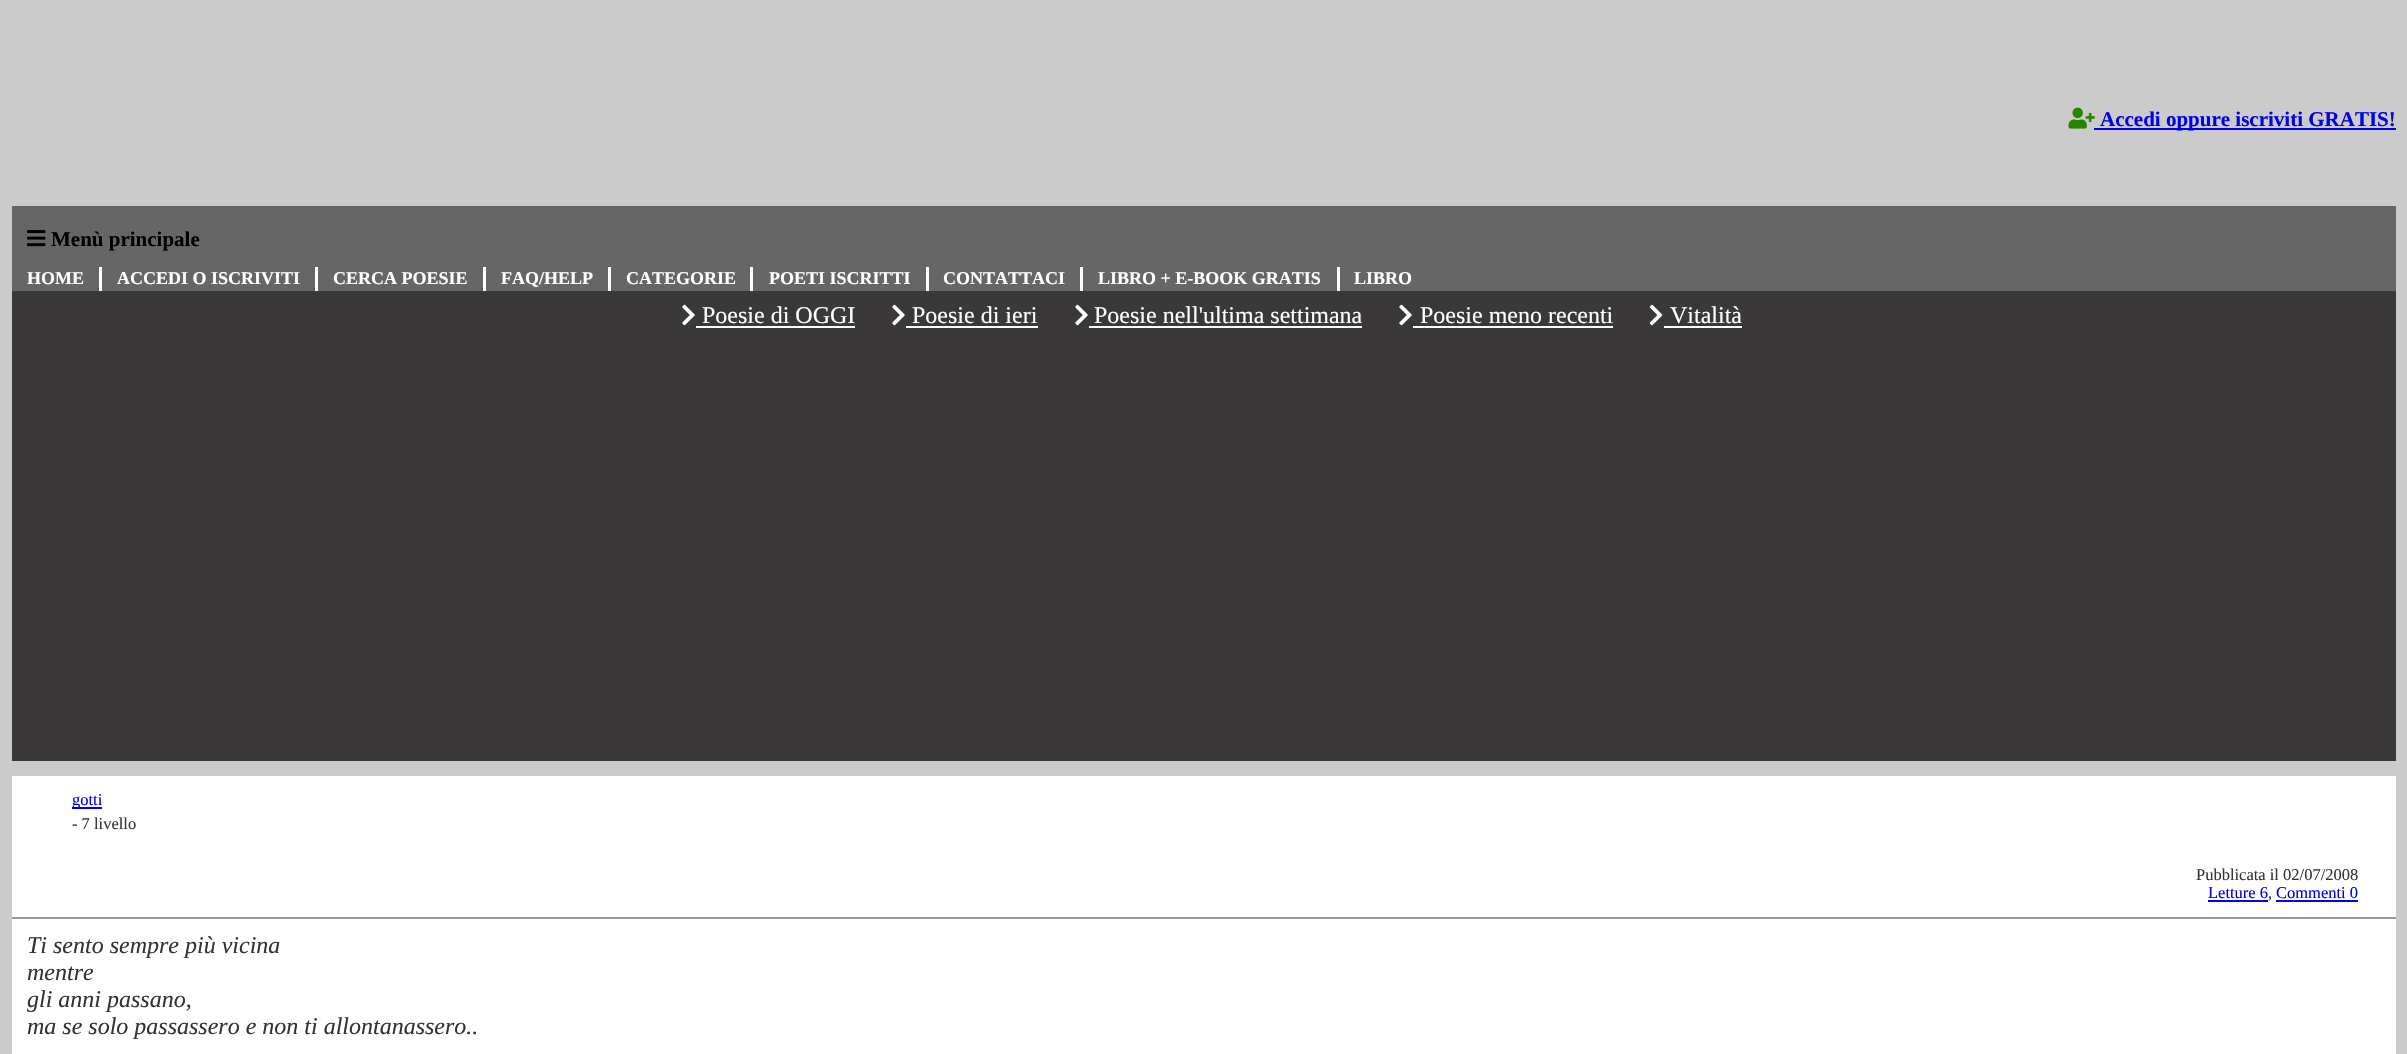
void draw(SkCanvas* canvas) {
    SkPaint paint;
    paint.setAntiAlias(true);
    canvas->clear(0xFFCBCBCB);
    canvas->drawImageRect(SkImages::DeferredFromEncodedData(SkData::MakeFromFileName("img1.png")), SkRect::MakeXYWH(2068, 107, 27, 22), SkSamplingOptions());
    paint.setColor(0xFF0000EE);
    canvas->drawRect(SkRect::MakeXYWH(2094, 128, 302, 2), paint);
    SkFont font1(fontMgr->matchFamilyStyle("Liberation Serif", SkFontStyle::Bold()), 21);
    font1.setSubpixel(true);
    canvas->drawString("Accedi oppure iscriviti GRATIS!", 2100, 126, font1, paint);
    paint.setColor(0xFF666666);
    canvas->drawRect(SkRect::MakeXYWH(12, 206, 2384, 85), paint);
    canvas->drawImageRect(SkImages::DeferredFromEncodedData(SkData::MakeFromFileName("img2.png")), SkRect::MakeXYWH(27, 230, 19, 17), SkSamplingOptions());
    paint.setColor(0xFF000000);
    canvas->drawString("Menù principale", 51, 246, font1, paint);
    paint.setColor(0xFFFFFFFF);
    canvas->drawRect(SkRect::MakeXYWH(99, 267, 3, 24), paint);
    SkFont font2(fontMgr->matchFamilyStyle("Liberation Serif", SkFontStyle::Bold()), 18);
    font2.setSubpixel(true);
    canvas->drawString("HOME", 27, 284, font2, paint);
    canvas->drawRect(SkRect::MakeXYWH(315, 267, 3, 24), paint);
    canvas->drawString("ACCEDI O ISCRIVITI", 117, 284, font2, paint);
    canvas->drawRect(SkRect::MakeXYWH(483, 267, 3, 24), paint);
    canvas->drawString("CERCA POESIE", 333, 284, font2, paint);
    canvas->drawRect(SkRect::MakeXYWH(608, 267, 3, 24), paint);
    canvas->drawString("FAQ/HELP", 501, 284, font2, paint);
    canvas->drawRect(SkRect::MakeXYWH(750, 267, 3, 24), paint);
    canvas->drawString("CATEGORIE", 626, 284, font2, paint);
    canvas->drawRect(SkRect::MakeXYWH(926, 267, 3, 24), paint);
    canvas->drawString("POETI ISCRITTI", 769, 284, font2, paint);
    canvas->drawRect(SkRect::MakeXYWH(1080, 267, 3, 24), paint);
    canvas->drawString("CONTATTACI", 943, 284, font2, paint);
    canvas->drawRect(SkRect::MakeXYWH(1337, 267, 3, 24), paint);
    canvas->drawString("LIBRO + E-BOOK GRATIS", 1098, 284, font2, paint);
    canvas->drawString("LIBRO", 1354, 284, font2, paint);
    paint.setColor(0xFF3A3838);
    canvas->drawRect(SkRect::MakeXYWH(12, 291, 2384, 470), paint);
    canvas->drawImageRect(SkImages::DeferredFromEncodedData(SkData::MakeFromFileName("img3.png")), SkRect::MakeXYWH(682, 304, 13, 22), SkSamplingOptions());
    SkFont font3(fontMgr->matchFamilyStyle("Liberation Serif", SkFontStyle::Normal()), 24);
    font3.setSubpixel(true);
    paint.setColor(0xFFFFFFFF);
    canvas->drawString("Poesie di OGGI", 702, 323, font3, paint);
    canvas->drawRect(SkRect::MakeXYWH(696, 326, 159, 2), paint);
    canvas->drawImageRect(SkImages::DeferredFromEncodedData(SkData::MakeFromFileName("img3.png")), SkRect::MakeXYWH(892, 304, 13, 22), SkSamplingOptions());
    canvas->drawString("Poesie di ieri", 912, 323, font3, paint);
    canvas->drawRect(SkRect::MakeXYWH(906, 326, 132, 2), paint);
    canvas->drawImageRect(SkImages::DeferredFromEncodedData(SkData::MakeFromFileName("img3.png")), SkRect::MakeXYWH(1075, 304, 13, 22), SkSamplingOptions());
    canvas->drawString("Poesie nell'ultima settimana", 1094, 323, font3, paint);
    canvas->drawRect(SkRect::MakeXYWH(1089, 326, 273, 2), paint);
    canvas->drawImageRect(SkImages::DeferredFromEncodedData(SkData::MakeFromFileName("img3.png")), SkRect::MakeXYWH(1399, 304, 13, 22), SkSamplingOptions());
    canvas->drawString("Poesie meno recenti", 1420, 323, font3, paint);
    canvas->drawRect(SkRect::MakeXYWH(1413, 326, 200, 2), paint);
    canvas->drawImageRect(SkImages::DeferredFromEncodedData(SkData::MakeFromFileName("img4.png")), SkRect::MakeXYWH(1649, 304, 14, 22), SkSamplingOptions());
    canvas->drawString("Vitalità", 1670, 323, font3, paint);
    canvas->drawRect(SkRect::MakeXYWH(1664, 326, 78, 2), paint);
    canvas->drawRect(SkRect::MakeXYWH(12, 776, 2384, 278), paint);
    paint.setColor(0xFF0000EE);
    canvas->drawRect(SkRect::MakeXYWH(72, 807, 30, 2), paint);
    SkFont font4(fontMgr->matchFamilyStyle("Liberation Serif", SkFontStyle::Normal()), 16.5f);
    font4.setSubpixel(true);
    canvas->drawString("gotti", 72, 805, font4, paint);
    paint.setColor(0xFF333333);
    canvas->drawString("- 7 livello", 72, 829, font4, paint);
    canvas->drawString("Pubblicata il 02/07/2008", 2196, 880, font4, paint);
    paint.setColor(0xFF0000EE);
    canvas->drawString("Letture 6", 2208, 898, font4, paint);
    canvas->drawRect(SkRect::MakeXYWH(2208, 900, 60, 2), paint);
    paint.setColor(0xFF333333);
    canvas->drawString(",", 2268, 898, font4, paint);
    paint.setColor(0xFF0000EE);
    canvas->drawString("Commenti 0", 2276, 898, font4, paint);
    canvas->drawRect(SkRect::MakeXYWH(2276, 900, 82, 2), paint);
    paint.setColor(0xFF999999);
    canvas->drawRect(SkRect::MakeXYWH(12, 917, 2384, 2), paint);
    SkFont font5(fontMgr->matchFamilyStyle("Liberation Serif", SkFontStyle::Italic()), 24);
    font5.setSubpixel(true);
    paint.setColor(0xFF333333);
    canvas->drawString("Ti sento sempre più vicina", 27, 953, font5, paint);
    canvas->drawString("mentre", 27, 980, font5, paint);
    canvas->drawString("gli anni passano,", 27, 1007, font5, paint);
    canvas->drawString("ma se solo passassero e non ti allontanassero..", 27, 1034, font5, paint);
}
